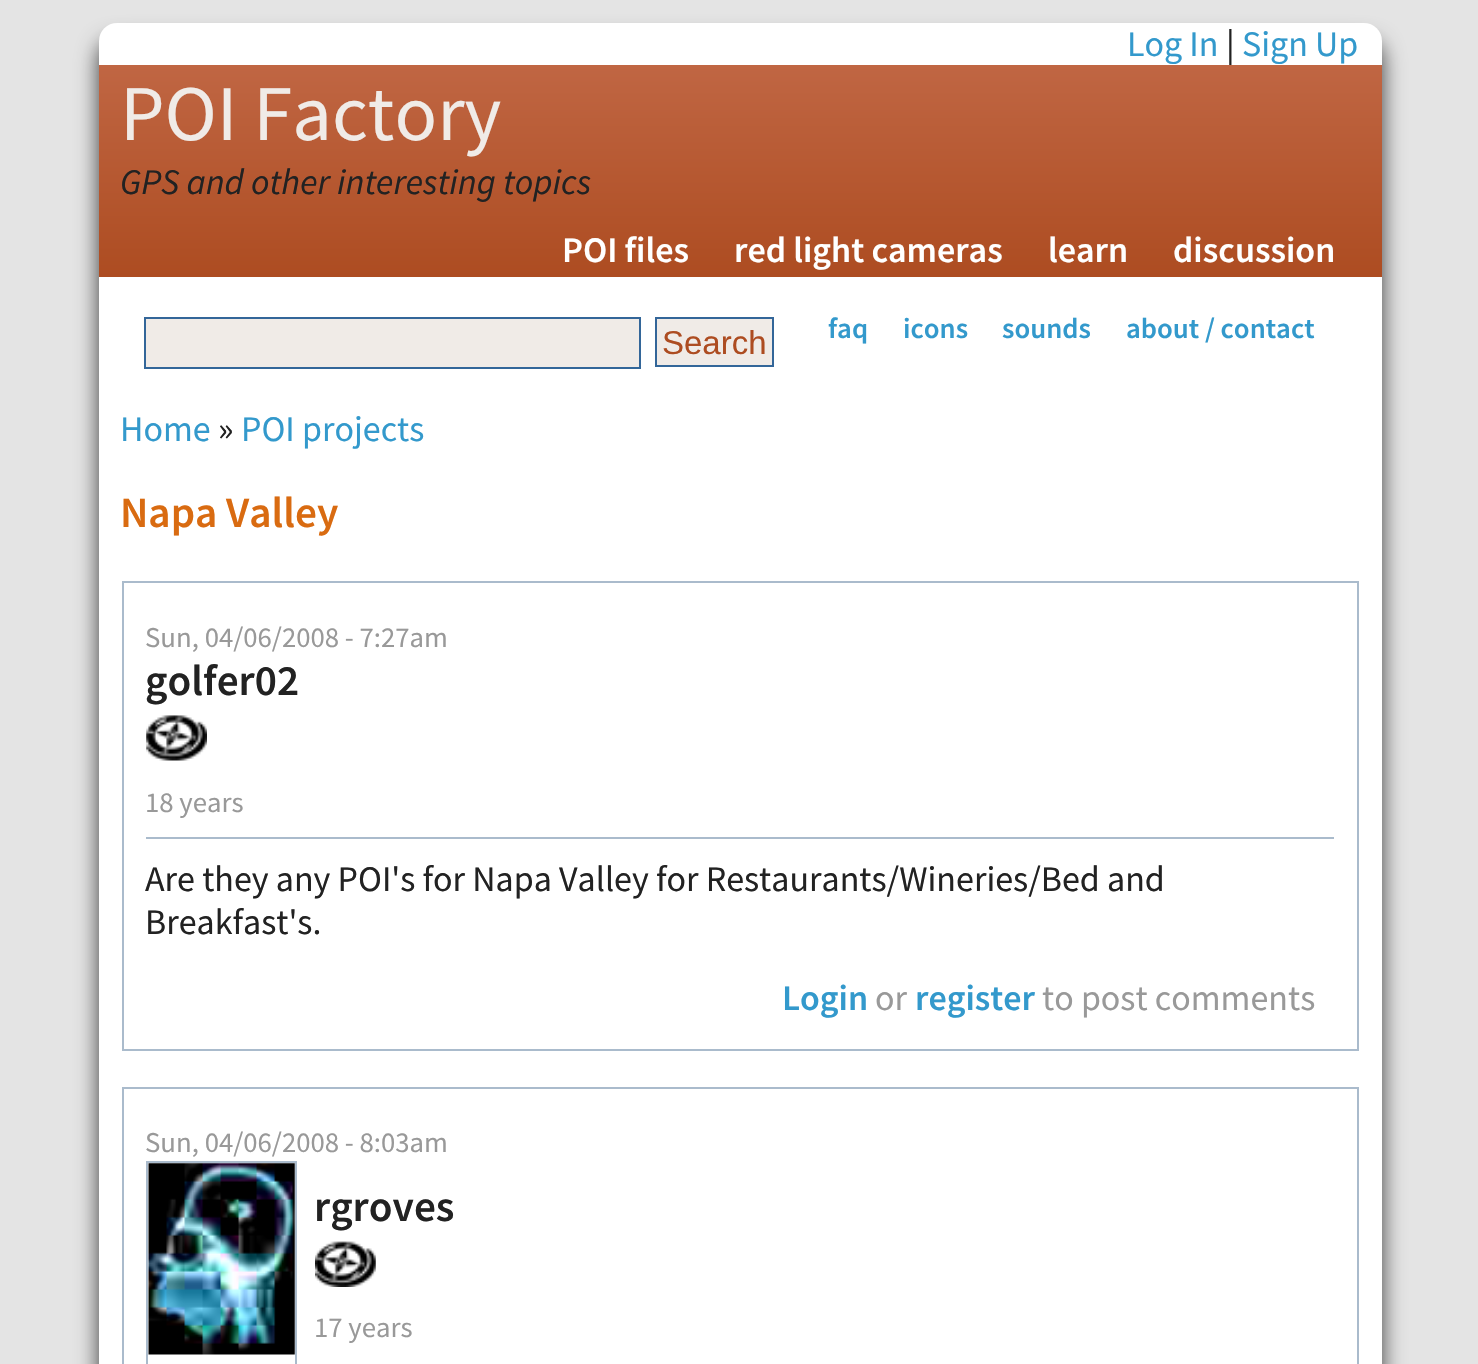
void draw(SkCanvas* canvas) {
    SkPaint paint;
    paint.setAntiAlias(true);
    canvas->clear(0xFFE4E4E4);
    paint.setColor(0xBF000000);
    paint.setMaskFilter(SkMaskFilter::MakeBlur(kNormal_SkBlurStyle, 11));
    canvas->drawRoundRect(SkRect::MakeXYWH(99, 41, 1283, 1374), 18, 18, paint);
    paint.setMaskFilter(nullptr);
    paint.setColor(0xFFFFFFFF);
    canvas->drawRoundRect(SkRect::MakeXYWH(99, 23, 1283, 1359), 18, 18, paint);
    SkFont font1(fontMgr->matchFamilyStyle("Source Sans Pro", SkFontStyle::Normal()), 36);
    font1.setSubpixel(true);
    paint.setColor(0xFF3399CC);
    canvas->drawString("Log In", 1127, 56, font1, paint);
    paint.setColor(0xFF222222);
    canvas->drawString("|", 1226, 56, font1, paint);
    paint.setColor(0xFF3399CC);
    canvas->drawString("Sign Up", 1242, 56, font1, paint);
    {
        const SkColor colors[] = {0xFFC06643, 0xFFAD4C21};
        const float stops[] = {0, 1};
        const SkPoint ends[] = {{740, 65}, {740, 277}};
        paint.setShader(SkGradientShader::MakeLinear(ends, colors, stops, 2, SkTileMode::kClamp));
        paint.setAlpha(255);
    }
    canvas->drawRect(SkRect::MakeXYWH(99, 65, 1283, 212), paint);
    SkFont font2(fontMgr->matchFamilyStyle("Source Sans Pro", SkFontStyle::Normal()), 78.75f);
    font2.setSubpixel(true);
    paint.setShader(nullptr);
    paint.setColor(0xFFF0EBE7);
    canvas->drawString("POI Factory", 120, 140, font2, paint);
    SkFont font3(fontMgr->matchFamilyStyle("Source Sans Pro", SkFontStyle::Italic()), 36);
    font3.setSubpixel(true);
    paint.setColor(0xFF222222);
    canvas->drawString("GPS and other interesting topics", 120, 194, font3, paint);
    SkFont font4(fontMgr->matchFamilyStyle("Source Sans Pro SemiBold", SkFontStyle(600, SkFontStyle::kNormal_Width, SkFontStyle::kUpright_Slant)), 36);
    font4.setSubpixel(true);
    paint.setColor(0xFFFFFFFF);
    canvas->drawString("POI files", 562, 262, font4, paint);
    canvas->drawString("red light cameras", 734, 262, font4, paint);
    canvas->drawString("learn", 1048, 262, font4, paint);
    canvas->drawString("discussion", 1173, 262, font4, paint);
    paint.setColor(0xFFF0EBE7);
    canvas->drawRect(SkRect::MakeXYWH(145, 318, 495, 50), paint);
    paint.setStyle(SkPaint::kStroke_Style);
    paint.setStrokeWidth(2);
    paint.setColor(0xFF336699);
    canvas->drawRect(SkRect::MakeXYWH(145, 318, 495, 50), paint);
    paint.setStyle(SkPaint::kFill_Style);
    paint.setColor(0xFFF0EBE7);
    canvas->drawRect(SkRect::MakeXYWH(656, 318, 117, 48), paint);
    paint.setStyle(SkPaint::kStroke_Style);
    paint.setColor(0xFF336699);
    canvas->drawRect(SkRect::MakeXYWH(656, 318, 117, 48), paint);
    SkFont font5(fontMgr->matchFamilyStyle("Liberation Sans", SkFontStyle::Normal()), 33);
    font5.setSubpixel(true);
    paint.setStyle(SkPaint::kFill_Style);
    paint.setColor(0xFFAD4C21);
    canvas->drawString("Search", 662, 354, font5, paint);
    SkFont font6(fontMgr->matchFamilyStyle("Source Sans Pro SemiBold", SkFontStyle(600, SkFontStyle::kNormal_Width, SkFontStyle::kUpright_Slant)), 28.75f);
    font6.setSubpixel(true);
    paint.setColor(0xFF3399CC);
    canvas->drawString("faq", 828, 338, font6, paint);
    canvas->drawString("icons", 903, 338, font6, paint);
    canvas->drawString("sounds", 1002, 338, font6, paint);
    canvas->drawString("about / contact", 1126, 338, font6, paint);
    canvas->drawString("Home", 120, 441, font1, paint);
    paint.setColor(0xFF222222);
    canvas->drawString("»", 218, 441, font1, paint);
    paint.setColor(0xFF3399CC);
    canvas->drawString("POI projects", 241, 441, font1, paint);
    SkFont font7(fontMgr->matchFamilyStyle("Source Sans Pro SemiBold", SkFontStyle(600, SkFontStyle::kNormal_Width, SkFontStyle::kUpright_Slant)), 43.25f);
    font7.setSubpixel(true);
    paint.setColor(0xFFD96B11);
    canvas->drawString("Napa Valley", 120, 527, font7, paint);
    paint.setStyle(SkPaint::kStroke_Style);
    paint.setColor(0xFFAABBCC);
    canvas->drawRect(SkRect::MakeXYWH(123, 582, 1235, 468), paint);
    SkFont font8(fontMgr->matchFamilyStyle("Source Sans Pro", SkFontStyle::Normal()), 28.75f);
    font8.setSubpixel(true);
    paint.setStyle(SkPaint::kFill_Style);
    paint.setColor(0xFF999999);
    canvas->drawString("Sun, 04/06/2008 - 7:27am", 145, 647, font8, paint);
    paint.setColor(0xFF222222);
    canvas->drawString("golfer02", 145, 695, font7, paint);
    canvas->drawImageRect(SkImages::DeferredFromEncodedData(SkData::MakeFromFileName("img1.png")), SkRect::MakeXYWH(146, 715, 61, 46), SkSamplingOptions());
    paint.setColor(0xFF999999);
    canvas->drawString("18 years", 145, 812, font8, paint);
    paint.setColor(0xFFAABBCC);
    canvas->drawRect(SkRect::MakeXYWH(146, 837, 1188, 2), paint);
    paint.setColor(0xFF222222);
    canvas->drawString("Are they any POI's for Napa Valley for Restaurants/Wineries/Bed and", 145, 891, font1, paint);
    canvas->drawString("Breakfast's.", 145, 934, font1, paint);
    paint.setColor(0xFF3399CC);
    canvas->drawString("Login", 782, 1010, font4, paint);
    paint.setColor(0xFF999999);
    canvas->drawString("or", 875, 1010, font1, paint);
    paint.setColor(0xFF3399CC);
    canvas->drawString("register", 915, 1010, font4, paint);
    paint.setColor(0xFF999999);
    canvas->drawString("to post comments", 1042, 1010, font1, paint);
    paint.setStyle(SkPaint::kStroke_Style);
    paint.setColor(0xFFAABBCC);
    canvas->drawRect(SkRect::MakeXYWH(123, 1088, 1235, 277), paint);
    paint.setStyle(SkPaint::kFill_Style);
    paint.setColor(0xFF999999);
    canvas->drawString("Sun, 04/06/2008 - 8:03am", 145, 1152, font8, paint);
    paint.setStyle(SkPaint::kStroke_Style);
    paint.setColor(0xFFAABBCC);
    canvas->drawRect(SkRect::MakeXYWH(147, 1162, 149, 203), paint);
    canvas->drawImageRect(SkImages::DeferredFromEncodedData(SkData::MakeFromFileName("img2.png")), SkRect::MakeXYWH(148, 1163, 147, 192), SkSamplingOptions());
    paint.setStyle(SkPaint::kFill_Style);
    paint.setColor(0xFF222222);
    canvas->drawString("rgroves", 314, 1221, font7, paint);
    canvas->drawImageRect(SkImages::DeferredFromEncodedData(SkData::MakeFromFileName("img3.png")), SkRect::MakeXYWH(315, 1241, 61, 46), SkSamplingOptions());
    paint.setColor(0xFF999999);
    canvas->drawString("17 years", 314, 1337, font8, paint);
}
